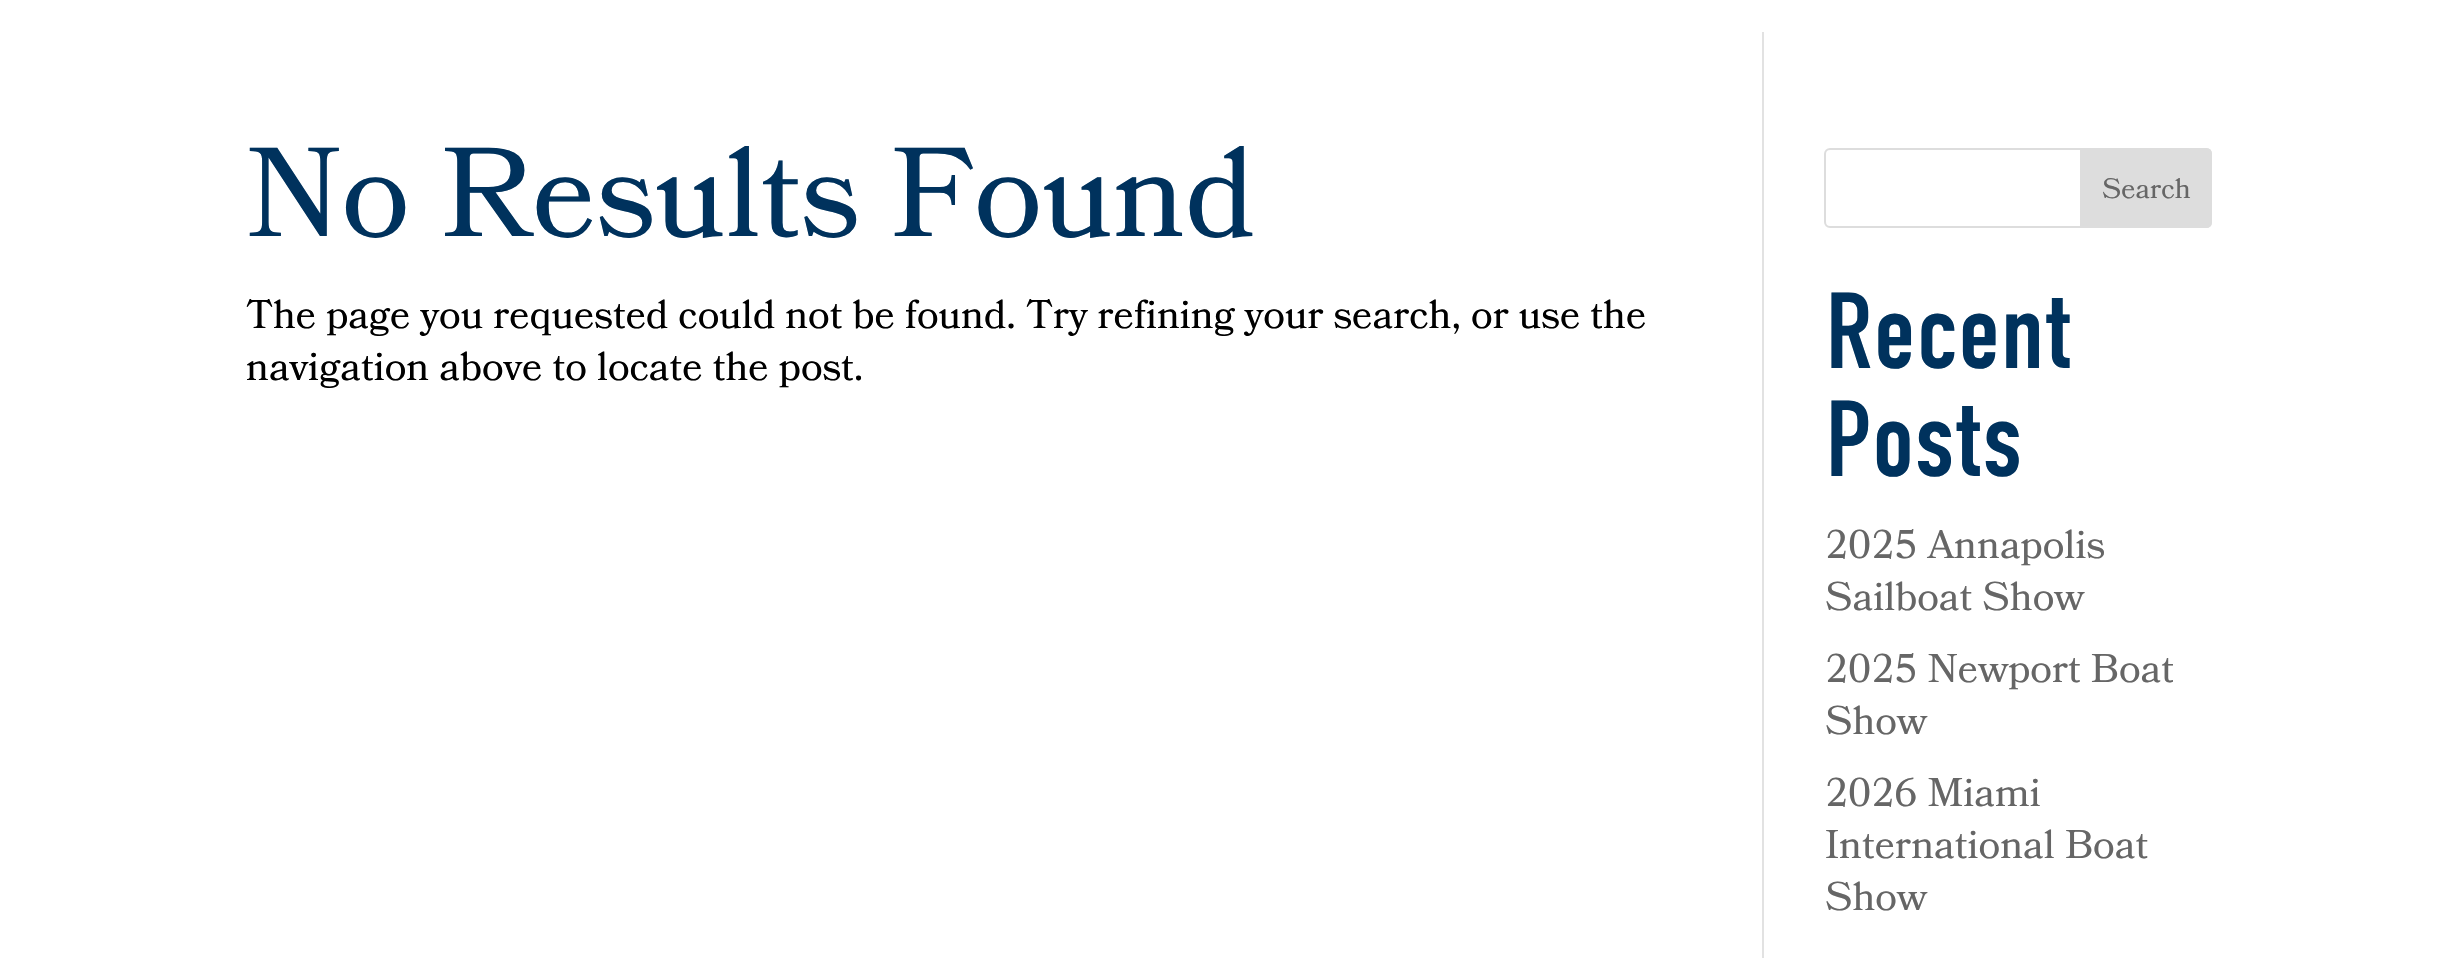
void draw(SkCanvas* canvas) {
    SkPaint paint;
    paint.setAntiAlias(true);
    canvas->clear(0xFFFFFFFF);
    paint.setColor(0xFFE2E2E2);
    canvas->drawRect(SkRect::MakeXYWH(1762, 32, 2, 926), paint);
    SkFont font1(fontMgr->matchFamilyStyle("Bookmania", SkFontStyle::Normal()), 126);
    font1.setSubpixel(true);
    paint.setColor(0xFF00325D);
    canvas->drawString("No Results Found", 246, 236, font1, paint);
    SkFont font2(fontMgr->matchFamilyStyle("Bookmania", SkFontStyle::Normal()), 40);
    font2.setSubpixel(true);
    paint.setColor(0xFF000000);
    canvas->drawString("The page you requested could not be found. Try refining your search, or use the", 246, 328, font2, paint);
    canvas->drawString("navigation above to locate the post.", 246, 380, font2, paint);
    paint.setStyle(SkPaint::kStroke_Style);
    paint.setStrokeWidth(2);
    paint.setColor(0xFFDDDDDD);
    canvas->drawRoundRect(SkRect::MakeXYWH(1825, 149, 386, 78), 5, 5, paint);
    paint.setStyle(SkPaint::kFill_Style);
    canvas->drawPath(SkPathBuilder().moveTo(2081, 149).lineTo(2206, 149).cubicTo(2209, 149, 2211, 151, 2211, 154).lineTo(2211, 222).cubicTo(2211, 225, 2209, 227, 2206, 227).lineTo(2081, 227).close().detach(), paint);
    paint.setStyle(SkPaint::kStroke_Style);
    canvas->drawPath(SkPathBuilder().moveTo(2081, 149).lineTo(2206, 149).cubicTo(2209, 149, 2211, 151, 2211, 154).lineTo(2211, 222).cubicTo(2211, 225, 2209, 227, 2206, 227).lineTo(2081, 227).close().detach(), paint);
    SkFont font3(fontMgr->matchFamilyStyle("Bookmania", SkFontStyle::Normal()), 28);
    font3.setSubpixel(true);
    paint.setStyle(SkPaint::kFill_Style);
    paint.setColor(0xFF666666);
    canvas->drawString("Search", 2102, 198, font3, paint);
    SkFont font4(fontMgr->matchFamilyStyle("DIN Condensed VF", SkFontStyle::Normal()), 108);
    font4.setSubpixel(true);
    paint.setColor(0xFF00325D);
    canvas->drawString("Recent", 1825, 368, font4, paint);
    canvas->drawString("Posts", 1825, 476, font4, paint);
    paint.setColor(0xFF666666);
    canvas->drawString("2025 Annapolis", 1825, 558, font2, paint);
    canvas->drawString("Sailboat Show", 1825, 610, font2, paint);
    canvas->drawString("2025 Newport Boat", 1825, 682, font2, paint);
    canvas->drawString("Show", 1825, 734, font2, paint);
    canvas->drawString("2026 Miami", 1825, 806, font2, paint);
    canvas->drawString("International Boat", 1825, 858, font2, paint);
    canvas->drawString("Show", 1825, 910, font2, paint);
}
